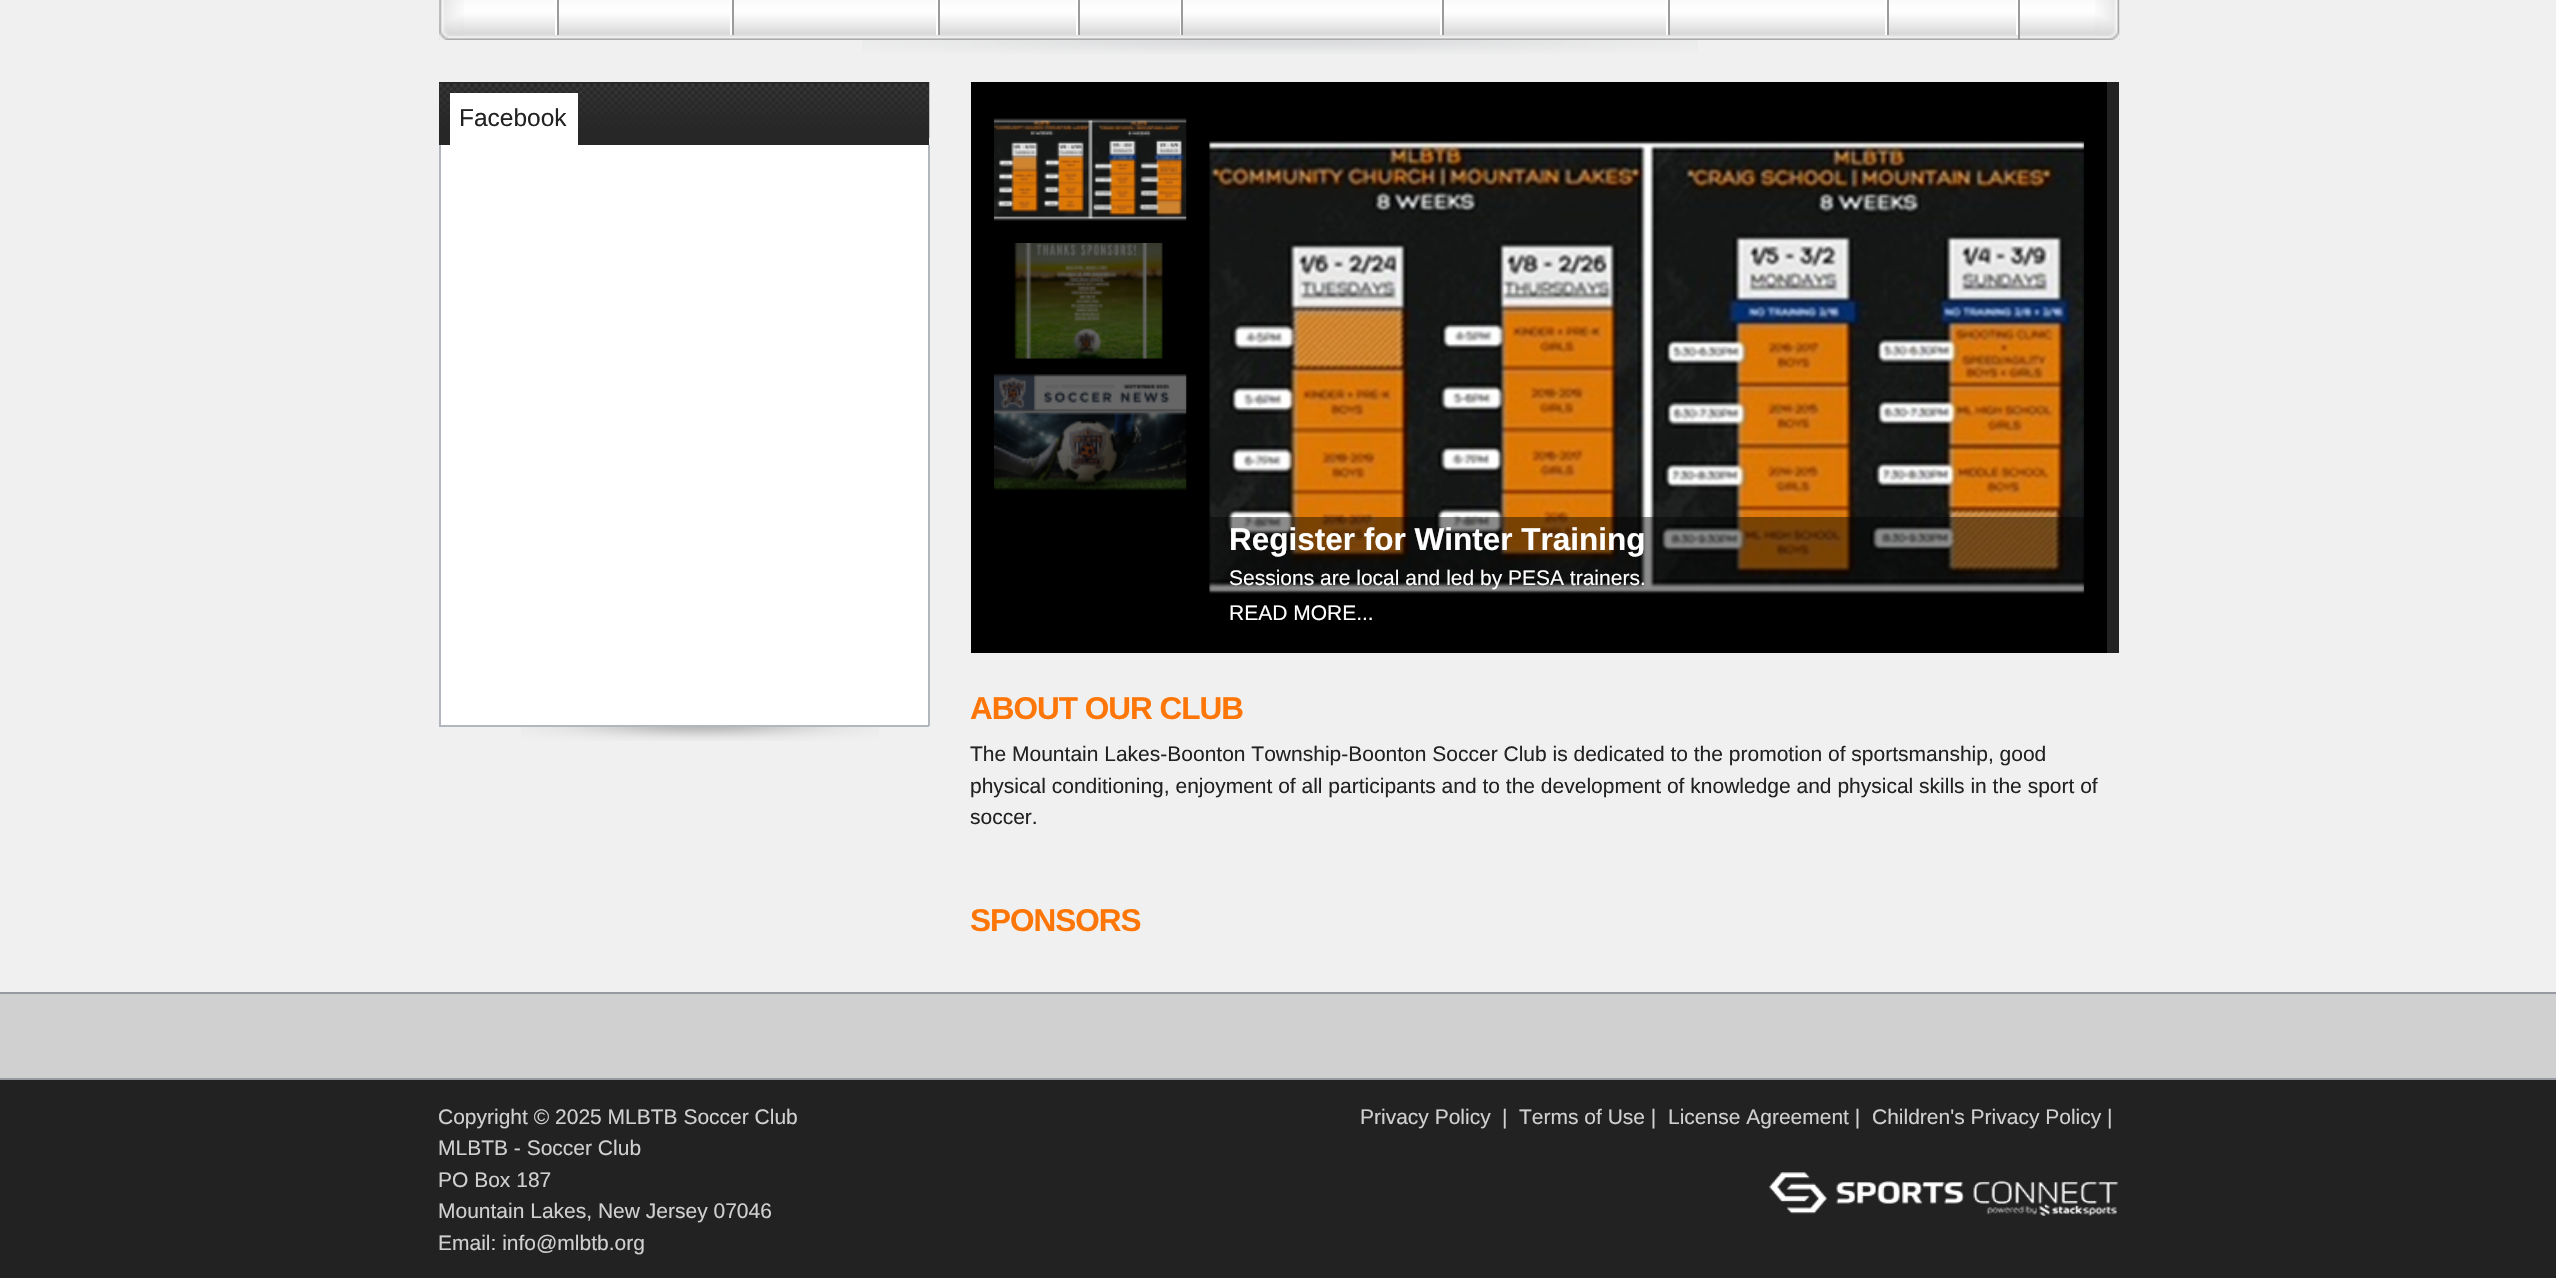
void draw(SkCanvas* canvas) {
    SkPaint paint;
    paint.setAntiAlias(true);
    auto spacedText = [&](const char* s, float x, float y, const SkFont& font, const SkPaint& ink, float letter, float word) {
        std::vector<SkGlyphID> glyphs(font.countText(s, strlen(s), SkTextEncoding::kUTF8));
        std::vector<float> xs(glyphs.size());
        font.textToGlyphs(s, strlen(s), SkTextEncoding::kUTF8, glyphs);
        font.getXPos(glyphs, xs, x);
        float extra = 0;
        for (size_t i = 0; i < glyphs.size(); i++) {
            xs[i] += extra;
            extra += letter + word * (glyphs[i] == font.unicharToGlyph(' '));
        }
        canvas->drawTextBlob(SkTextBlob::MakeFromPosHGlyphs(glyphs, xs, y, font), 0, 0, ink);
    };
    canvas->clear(0xFF222222);
    paint.setColor(0xFFF0F0F0);
    canvas->drawRect(SkRect::MakeXYWH(0, 0, 2556, 992), paint);
    canvas->drawImageRect(SkImages::DeferredFromEncodedData(SkData::MakeFromFileName("img1.png")), SkRect::MakeXYWH(439, 0, 1681, 40), SkSamplingOptions());
    canvas->drawImageRect(SkImages::DeferredFromEncodedData(SkData::MakeFromFileName("img2.png")), SkRect::MakeXYWH(439, 0, 25, 40), SkSamplingOptions());
    canvas->drawImageRect(SkImages::DeferredFromEncodedData(SkData::MakeFromFileName("img3.png")), SkRect::MakeXYWH(2095, 0, 25, 40), SkSamplingOptions());
    paint.setColor(0xFF9B9B9B);
    canvas->drawRect(SkRect::MakeXYWH(2018, 0, 2, 40), paint);
    paint.setColor(0xFFFFFFFF);
    canvas->drawRect(SkRect::MakeXYWH(555, 0, 2, 35), paint);
    canvas->drawRect(SkRect::MakeXYWH(730, 0, 2, 35), paint);
    paint.setColor(0xFF9B9B9B);
    canvas->drawRect(SkRect::MakeXYWH(557, 0, 2, 35), paint);
    paint.setColor(0xFFFFFFFF);
    canvas->drawRect(SkRect::MakeXYWH(936, 0, 2, 35), paint);
    paint.setColor(0xFF9B9B9B);
    canvas->drawRect(SkRect::MakeXYWH(732, 0, 2, 35), paint);
    paint.setColor(0xFFFFFFFF);
    canvas->drawRect(SkRect::MakeXYWH(1076, 0, 2, 35), paint);
    paint.setColor(0xFF9B9B9B);
    canvas->drawRect(SkRect::MakeXYWH(938, 0, 2, 35), paint);
    paint.setColor(0xFFFFFFFF);
    canvas->drawRect(SkRect::MakeXYWH(1180, 0, 1, 35), paint);
    paint.setColor(0xFF9B9B9B);
    canvas->drawRect(SkRect::MakeXYWH(1078, 0, 2, 35), paint);
    paint.setColor(0xFFFFFFFF);
    canvas->drawRect(SkRect::MakeXYWH(1440, 0, 2, 35), paint);
    paint.setColor(0xFF9B9B9B);
    canvas->drawRect(SkRect::MakeXYWH(1181, 0, 2, 35), paint);
    paint.setColor(0xFFFFFFFF);
    canvas->drawRect(SkRect::MakeXYWH(1666, 0, 2, 35), paint);
    paint.setColor(0xFF9B9B9B);
    canvas->drawRect(SkRect::MakeXYWH(1442, 0, 2, 35), paint);
    paint.setColor(0xFFFFFFFF);
    canvas->drawRect(SkRect::MakeXYWH(1885, 0, 2, 35), paint);
    paint.setColor(0xFF9B9B9B);
    canvas->drawRect(SkRect::MakeXYWH(1668, 0, 2, 35), paint);
    paint.setColor(0xFFFFFFFF);
    canvas->drawRect(SkRect::MakeXYWH(2016, 0, 2, 35), paint);
    paint.setColor(0xFF9B9B9B);
    canvas->drawRect(SkRect::MakeXYWH(1887, 0, 2, 35), paint);
    canvas->drawImageRect(SkImages::DeferredFromEncodedData(SkData::MakeFromFileName("img4.png")), SkRect::MakeXYWH(862, 40, 836, 14), SkSamplingOptions());
    canvas->drawImageRect(SkImages::DeferredFromEncodedData(SkData::MakeFromFileName("img5.png")), SkRect::MakeXYWH(521, 727, 358, 14), SkSamplingOptions());
    paint.setColor(0xFF272727);
    canvas->drawRect(SkRect::MakeXYWH(439, 82, 490, 63), paint);
    canvas->drawImageRect(SkImages::DeferredFromEncodedData(SkData::MakeFromFileName("img6.png")), SkRect::MakeXYWH(439, 82, 491, 56), SkSamplingOptions());
    paint.setColor(0xFFFFFFFF);
    canvas->drawRect(SkRect::MakeXYWH(450, 93, 128, 52), paint);
    SkFont font1(fontMgr->matchFamilyStyle("Liberation Sans", SkFontStyle::Normal()), 24.5f);
    font1.setSubpixel(true);
    paint.setColor(0xFF222222);
    canvas->drawString("Facebook", 459, 126, font1, paint);
    paint.setColor(0xFFFFFFFF);
    canvas->drawRect(SkRect::MakeXYWH(441, 145, 487, 580), paint);
    paint.setColor(0xFFB2B6BD);
    canvas->drawRect(SkRect::MakeXYWH(928, 145, 2, 581), paint);
    canvas->drawRect(SkRect::MakeXYWH(439, 725, 490, 2), paint);
    canvas->drawRect(SkRect::MakeXYWH(439, 145, 2, 581), paint);
    paint.setColor(0xFF222222);
    canvas->drawRect(SkRect::MakeXYWH(2107, 82, 12, 571), paint);
    paint.setColor(0xFF000000);
    canvas->drawRect(SkRect::MakeXYWH(971, 82, 1136, 571), paint);
    canvas->drawImageRect(SkImages::DeferredFromEncodedData(SkData::MakeFromFileName("img7.png")), SkRect::MakeXYWH(994, 118, 193, 103), SkSamplingOptions());
    canvas->drawImageRect(SkImages::DeferredFromEncodedData(SkData::MakeFromFileName("img8.png")), SkRect::MakeXYWH(1014, 243, 149, 116), SkSamplingOptions());
    canvas->drawImageRect(SkImages::DeferredFromEncodedData(SkData::MakeFromFileName("img9.png")), SkRect::MakeXYWH(994, 374, 193, 116), SkSamplingOptions());
    canvas->drawImageRect(SkImages::DeferredFromEncodedData(SkData::MakeFromFileName("img10.png")), SkRect::MakeXYWH(1209, 141, 876, 453), SkSamplingOptions());
    paint.setColor(0x73000000);
    canvas->drawRect(SkRect::MakeXYWH(1209, 517, 875, 77), paint);
    SkFont font2(fontMgr->matchFamilyStyle("Liberation Sans", SkFontStyle::Bold()), 31.5f);
    font2.setSubpixel(true);
    paint.setColor(0xFFFFFFFF);
    canvas->drawString("Register for Winter Training", 1229, 550, font2, paint);
    SkFont font3(fontMgr->matchFamilyStyle("Liberation Sans", SkFontStyle::Normal()), 21);
    font3.setSubpixel(true);
    canvas->drawString("Sessions are local and led by PESA trainers.", 1229, 585, font3, paint);
    canvas->drawString("READ MORE...", 1229, 620, font3, paint);
    paint.setColor(0xFFFE7607);
    spacedText("ABOUT OUR CLUB", 970, 719, font2, paint, -1, 0);
    paint.setColor(0xFF222222);
    canvas->drawString("The Mountain Lakes-Boonton Township-Boonton Soccer Club is dedicated to the promotion of sportsmanship, good", 970, 761, font3, paint);
    canvas->drawString("physical conditioning, enjoyment of all participants and to the development of knowledge and physical skills in the sport of", 970, 793, font3, paint);
    canvas->drawString("soccer.", 970, 824, font3, paint);
    paint.setColor(0xFFFE7607);
    spacedText("SPONSORS", 970, 931, font2, paint, -1, 0);
    paint.setColor(0xFFD0D0D0);
    canvas->drawRect(SkRect::MakeXYWH(0, 994, 2556, 84), paint);
    paint.setColor(0xFF969AA0);
    canvas->drawRect(SkRect::MakeXYWH(0, 992, 2556, 2), paint);
    canvas->drawRect(SkRect::MakeXYWH(0, 1078, 2556, 2), paint);
    paint.setColor(0xFFD0D0D0);
    canvas->drawString("Copyright © 2025 MLBTB Soccer Club", 438, 1124, font3, paint);
    canvas->drawString("MLBTB - Soccer Club", 438, 1155, font3, paint);
    canvas->drawString("PO Box 187", 438, 1187, font3, paint);
    canvas->drawString("Mountain Lakes, New Jersey 07046", 438, 1218, font3, paint);
    canvas->drawString("Email: info@mlbtb.org", 438, 1250, font3, paint);
    canvas->drawString("Privacy Policy", 1360, 1124, font3, paint);
    canvas->drawString("|", 1502, 1124, font3, paint);
    canvas->drawString("Terms of Use |", 1519, 1124, font3, paint);
    canvas->drawString("License Agreement |", 1668, 1124, font3, paint);
    canvas->drawString("Children's Privacy Policy |", 1872, 1124, font3, paint);
    canvas->drawImageRect(SkImages::DeferredFromEncodedData(SkData::MakeFromFileName("img11.png")), SkRect::MakeXYWH(1769, 1172, 350, 44), SkSamplingOptions());
}
